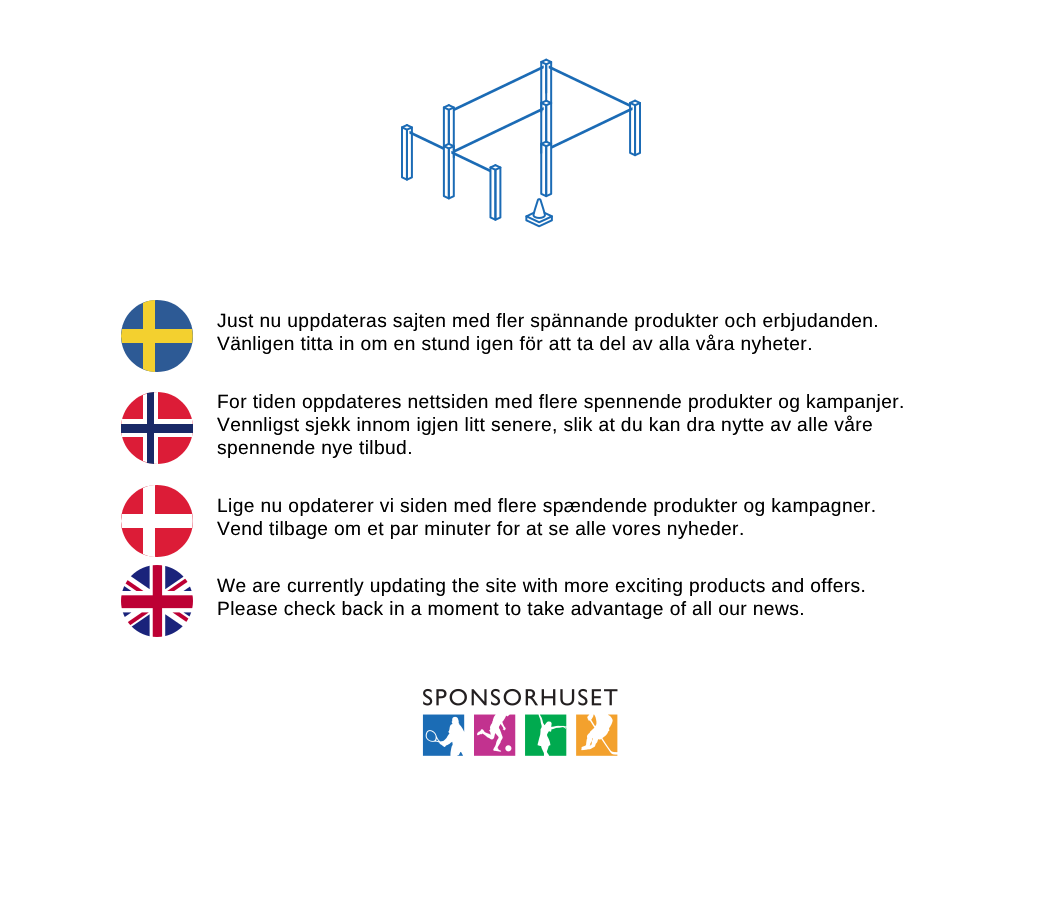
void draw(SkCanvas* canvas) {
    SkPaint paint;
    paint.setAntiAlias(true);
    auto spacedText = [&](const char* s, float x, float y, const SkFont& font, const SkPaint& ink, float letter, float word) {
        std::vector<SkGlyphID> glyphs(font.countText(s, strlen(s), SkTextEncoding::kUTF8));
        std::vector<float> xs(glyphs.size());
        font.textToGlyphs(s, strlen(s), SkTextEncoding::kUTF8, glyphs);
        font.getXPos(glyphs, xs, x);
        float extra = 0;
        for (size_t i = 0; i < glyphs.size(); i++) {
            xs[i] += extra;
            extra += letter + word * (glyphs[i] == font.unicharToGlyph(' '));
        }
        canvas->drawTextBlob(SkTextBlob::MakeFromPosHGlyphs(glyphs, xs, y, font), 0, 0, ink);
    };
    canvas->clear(0xFFFFFFFF);
    canvas->drawImageRect(SkImages::DeferredFromEncodedData(SkData::MakeFromFileName("img1.png")), SkRect::MakeXYWH(401, 58, 240, 170), SkSamplingOptions());
    paint.setColor(0xFF2D5A95);
    canvas->drawPath(SkPathBuilder().moveTo(121, 336).cubicTo(121, 316, 137, 300, 157, 300).cubicTo(177, 300, 193, 316, 193, 336).cubicTo(193, 356, 177, 372, 157, 372).cubicTo(137, 372, 121, 356, 121, 336).close().detach(), paint);
    paint.setColor(0xFFF3D02F);
    canvas->drawPath(SkPathBuilder().moveTo(143, 303).lineTo(143, 369).cubicTo(147, 371, 151, 372, 155, 372).lineTo(155, 300).cubicTo(151, 300, 147, 301, 143, 303).close().detach(), paint);
    canvas->drawPath(SkPathBuilder().moveTo(121, 336).lineTo(122, 329).lineTo(192, 329).cubicTo(193, 334, 193, 338, 192, 343).lineTo(122, 343).close().detach(), paint);
    SkFont font1(fontMgr->matchFamilyStyle("Liberation Sans", SkFontStyle::Normal()), 19.2f);
    font1.setSubpixel(true);
    paint.setColor(0xFF000000);
    spacedText("Just nu uppdateras sajten med fler spännande produkter och erbjudanden.", 217, 327, font1, paint, 0.38f, 0);
    spacedText("Vänligen titta in om en stund igen för att ta del av alla våra nyheter.", 217, 350, font1, paint, 0.38f, 0);
    paint.setColor(0xFFDC1C37);
    canvas->drawPath(SkPathBuilder().moveTo(121, 428).cubicTo(121, 408, 137, 392, 157, 392).cubicTo(177, 392, 193, 408, 193, 428).cubicTo(193, 448, 177, 464, 157, 464).cubicTo(137, 464, 121, 448, 121, 428).close().detach(), paint);
    paint.setColor(0xFFFFFFFF);
    canvas->drawPath(SkPathBuilder().moveTo(143, 395).lineTo(143, 461).cubicTo(148, 463, 153, 464, 158, 464).lineTo(158, 392).cubicTo(153, 392, 148, 393, 143, 395).close().detach(), paint);
    canvas->drawPath(SkPathBuilder().moveTo(121, 428).lineTo(122, 419).lineTo(192, 419).cubicTo(193, 425, 193, 431, 192, 437).lineTo(122, 437).close().detach(), paint);
    paint.setColor(0xFF192967);
    canvas->drawPath(SkPathBuilder().moveTo(147, 393).lineTo(147, 463).lineTo(154, 464).lineTo(154, 392).close().detach(), paint);
    canvas->drawPath(SkPathBuilder().moveTo(121, 428).lineTo(121, 424).lineTo(193, 424).lineTo(193, 433).lineTo(121, 433).close().detach(), paint);
    paint.setColor(0xFF000000);
    spacedText("For tiden oppdateres nettsiden med flere spennende produkter og kampanjer.", 217, 408, font1, paint, 0.38f, 0);
    spacedText("Vennligst sjekk innom igjen litt senere, slik at du kan dra nytte av alle våre", 217, 431, font1, paint, 0.38f, 0);
    spacedText("spennende nye tilbud.", 217, 454, font1, paint, 0.38f, 0);
    paint.setColor(0xFFDC1C37);
    canvas->drawPath(SkPathBuilder().moveTo(121, 521).cubicTo(121, 501, 137, 485, 157, 485).cubicTo(177, 485, 193, 501, 193, 521).cubicTo(193, 541, 177, 557, 157, 557).cubicTo(137, 557, 121, 541, 121, 521).close().detach(), paint);
    paint.setColor(0xFFFFFFFF);
    canvas->drawPath(SkPathBuilder().moveTo(143, 488).lineTo(143, 554).cubicTo(147, 556, 151, 557, 155, 557).lineTo(155, 485).cubicTo(151, 485, 147, 486, 143, 488).close().detach(), paint);
    canvas->drawPath(SkPathBuilder().moveTo(121, 521).lineTo(122, 514).lineTo(192, 514).cubicTo(193, 519, 193, 523, 192, 528).lineTo(122, 528).close().detach(), paint);
    paint.setColor(0xFF000000);
    spacedText("Lige nu opdaterer vi siden med flere spændende produkter og kampagner.", 217, 512, font1, paint, 0.38f, 0);
    spacedText("Vend tilbage om et par minuter for at se alle vores nyheder.", 217, 535, font1, paint, 0.38f, 0);
    canvas->drawImageRect(SkImages::DeferredFromEncodedData(SkData::MakeFromFileName("img2.png")), SkRect::MakeXYWH(121, 565, 72, 72), SkSamplingOptions());
    spacedText("We are currently updating the site with more exciting products and offers.", 217, 592, font1, paint, 0.38f, 0);
    spacedText("Please check back in a moment to take advantage of all our news.", 217, 615, font1, paint, 0.38f, 0);
    canvas->drawImageRect(SkImages::DeferredFromEncodedData(SkData::MakeFromFileName("img3.png")), SkRect::MakeXYWH(422, 688, 196, 68), SkSamplingOptions());
}
